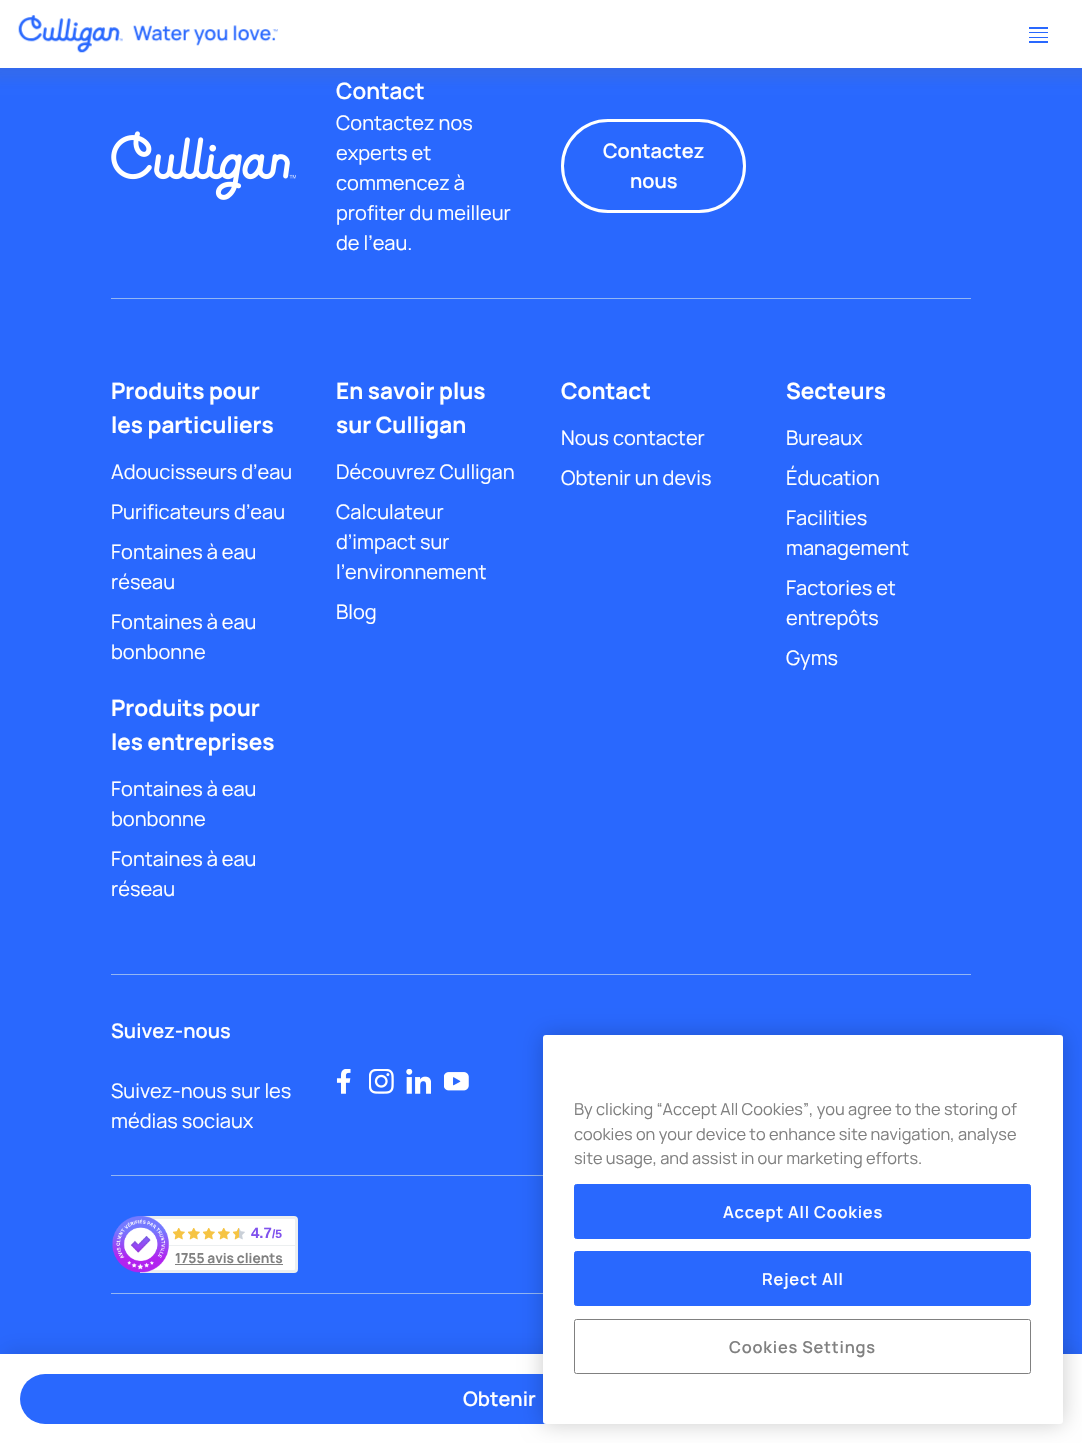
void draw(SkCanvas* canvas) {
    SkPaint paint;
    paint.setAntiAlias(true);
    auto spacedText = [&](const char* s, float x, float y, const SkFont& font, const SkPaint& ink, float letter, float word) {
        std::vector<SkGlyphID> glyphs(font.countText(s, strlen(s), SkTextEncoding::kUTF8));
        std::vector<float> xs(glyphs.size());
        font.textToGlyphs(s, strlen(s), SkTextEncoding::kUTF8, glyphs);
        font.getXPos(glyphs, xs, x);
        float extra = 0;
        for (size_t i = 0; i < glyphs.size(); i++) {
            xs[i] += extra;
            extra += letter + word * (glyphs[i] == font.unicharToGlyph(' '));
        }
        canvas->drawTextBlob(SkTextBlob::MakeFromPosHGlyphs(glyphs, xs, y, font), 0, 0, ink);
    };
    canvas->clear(0xFF2968FE);
    paint.setColor(0x1F71717A);
    paint.setMaskFilter(SkMaskFilter::MakeBlur(kNormal_SkBlurStyle, 5));
    canvas->drawRect(SkRect::MakeXYWH(-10, -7, 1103, 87), paint);
    paint.setMaskFilter(nullptr);
    paint.setColor(0xFFFFFFFF);
    canvas->drawRect(SkRect::MakeXYWH(0, 0, 1082, 68), paint);
    canvas->drawImageRect(SkImages::DeferredFromEncodedData(SkData::MakeFromFileName("img1.png")), SkRect::MakeXYWH(18, 15, 260, 38), SkSamplingOptions());
    paint.setColor(0xFF2968FE);
    canvas->drawRect(SkRect::MakeXYWH(1029, 27, 19, 2), paint);
    canvas->drawRect(SkRect::MakeXYWH(1029, 41, 19, 2), paint);
    canvas->drawRect(SkRect::MakeXYWH(1029, 32, 19, 1), paint);
    canvas->drawRect(SkRect::MakeXYWH(1029, 37, 19, 1), paint);
    canvas->drawImageRect(SkImages::DeferredFromEncodedData(SkData::MakeFromFileName("img2.png")), SkRect::MakeXYWH(111, 131, 185, 69), SkSamplingOptions());
    SkFont font1(fontMgr->matchFamilyStyle("Manrope", SkFontStyle(600, SkFontStyle::kNormal_Width, SkFontStyle::kUpright_Slant)), 22.5f);
    font1.setSubpixel(true);
    paint.setColor(0xFFFFFFFF);
    canvas->drawString("Contact", 336, 99, font1, paint);
    SkFont font2(fontMgr->matchFamilyStyle("Manrope", SkFontStyle::Normal()), 20);
    font2.setSubpixel(true);
    canvas->drawString("Contactez nos", 336, 130, font2, paint);
    canvas->drawString("experts et", 336, 160, font2, paint);
    canvas->drawString("commencez à", 336, 190, font2, paint);
    canvas->drawString("profiter du meilleur", 336, 220, font2, paint);
    canvas->drawString("de l’eau.", 336, 250, font2, paint);
    paint.setStyle(SkPaint::kStroke_Style);
    paint.setStrokeWidth(3);
    canvas->drawRoundRect(SkRect::MakeXYWH(562.5f, 120.5f, 182, 91), 45.5f, 45.5f, paint);
    SkFont font3(fontMgr->matchFamilyStyle("Manrope", SkFontStyle(600, SkFontStyle::kNormal_Width, SkFontStyle::kUpright_Slant)), 20);
    font3.setSubpixel(true);
    paint.setStyle(SkPaint::kFill_Style);
    canvas->drawString("Contactez", 603, 158, font3, paint);
    canvas->drawString("nous", 630, 188, font3, paint);
    paint.setColor(0xFF93B6F3);
    canvas->drawRect(SkRect::MakeXYWH(111, 298, 860, 1), paint);
    SkFont font4(fontMgr->matchFamilyStyle("Manrope", SkFontStyle::Bold()), 22.5f);
    font4.setSubpixel(true);
    paint.setColor(0xFFFFFFFF);
    canvas->drawString("Produits pour", 111, 399, font4, paint);
    canvas->drawString("les particuliers", 111, 433, font4, paint);
    canvas->drawString("Adoucisseurs d’eau", 111, 479, font2, paint);
    canvas->drawString("Purificateurs d’eau", 111, 519, font2, paint);
    canvas->drawString("Fontaines à eau", 111, 559, font2, paint);
    canvas->drawString("réseau", 111, 589, font2, paint);
    canvas->drawString("Fontaines à eau", 111, 629, font2, paint);
    canvas->drawString("bonbonne", 111, 659, font2, paint);
    canvas->drawString("Produits pour", 111, 716, font4, paint);
    canvas->drawString("les entreprises", 111, 750, font4, paint);
    canvas->drawString("Fontaines à eau", 111, 796, font2, paint);
    canvas->drawString("bonbonne", 111, 826, font2, paint);
    canvas->drawString("Fontaines à eau", 111, 866, font2, paint);
    canvas->drawString("réseau", 111, 896, font2, paint);
    canvas->drawString("En savoir plus", 336, 399, font4, paint);
    canvas->drawString("sur Culligan", 336, 433, font4, paint);
    canvas->drawString("Découvrez Culligan", 336, 479, font2, paint);
    canvas->drawString("Calculateur", 336, 519, font2, paint);
    canvas->drawString("d’impact sur", 336, 549, font2, paint);
    canvas->drawString("l’environnement", 336, 579, font2, paint);
    canvas->drawString("Blog", 336, 619, font2, paint);
    canvas->drawString("Contact", 561, 399, font4, paint);
    canvas->drawString("Nous contacter", 561, 445, font2, paint);
    canvas->drawString("Obtenir un devis", 561, 485, font2, paint);
    canvas->drawString("Secteurs", 786, 399, font4, paint);
    canvas->drawString("Bureaux", 786, 445, font2, paint);
    canvas->drawString("Éducation", 786, 485, font2, paint);
    canvas->drawString("Facilities", 786, 525, font2, paint);
    canvas->drawString("management", 786, 555, font2, paint);
    canvas->drawString("Factories et", 786, 595, font2, paint);
    canvas->drawString("entrepôts", 786, 625, font2, paint);
    canvas->drawString("Gyms", 786, 665, font2, paint);
    paint.setColor(0xFF93B6F3);
    canvas->drawRect(SkRect::MakeXYWH(111, 974, 860, 1), paint);
    paint.setColor(0xFFFFFFFF);
    canvas->drawString("Suivez-nous", 111, 1038, font3, paint);
    canvas->drawString("Suivez-nous sur les", 111, 1098, font2, paint);
    canvas->drawString("médias sociaux", 111, 1128, font2, paint);
    canvas->drawImageRect(SkImages::DeferredFromEncodedData(SkData::MakeFromFileName("img3.png")), SkRect::MakeXYWH(336, 1069, 15, 25), SkSamplingOptions());
    canvas->drawImageRect(SkImages::DeferredFromEncodedData(SkData::MakeFromFileName("img4.png")), SkRect::MakeXYWH(369, 1069, 25, 25), SkSamplingOptions());
    canvas->drawImageRect(SkImages::DeferredFromEncodedData(SkData::MakeFromFileName("img5.png")), SkRect::MakeXYWH(406, 1069, 25, 25), SkSamplingOptions());
    canvas->drawImageRect(SkImages::DeferredFromEncodedData(SkData::MakeFromFileName("img6.png")), SkRect::MakeXYWH(444, 1072, 25, 19), SkSamplingOptions());
    paint.setColor(0xFF93B6F3);
    canvas->drawRect(SkRect::MakeXYWH(111, 1175, 432, 1), paint);
    paint.setColor(0xFFFFFFFF);
    canvas->drawPath(SkPathBuilder().moveTo(141.5f, 1217.5f).lineTo(294, 1217.5f).cubicTo(295.5f, 1217.5f, 296.5f, 1218.5f, 296.5f, 1220).lineTo(296.5f, 1269).cubicTo(296.5f, 1270.5f, 295.5f, 1271.5f, 294, 1271.5f).lineTo(141.5f, 1271.5f).close().detach(), paint);
    paint.setStyle(SkPaint::kStroke_Style);
    paint.setColor(0xFFECEFF0);
    canvas->drawPath(SkPathBuilder().moveTo(141.5f, 1217.5f).lineTo(294, 1217.5f).cubicTo(295.5f, 1217.5f, 296.5f, 1218.5f, 296.5f, 1220).lineTo(296.5f, 1269).cubicTo(296.5f, 1270.5f, 295.5f, 1271.5f, 294, 1271.5f).lineTo(141.5f, 1271.5f).close().detach(), paint);
    canvas->drawImageRect(SkImages::DeferredFromEncodedData(SkData::MakeFromFileName("img7.png")), SkRect::MakeXYWH(112, 1216, 57, 57), SkSamplingOptions());
    canvas->drawImageRect(SkImages::DeferredFromEncodedData(SkData::MakeFromFileName("img8.png")), SkRect::MakeXYWH(173, 1228, 12, 12), SkSamplingOptions());
    canvas->drawImageRect(SkImages::DeferredFromEncodedData(SkData::MakeFromFileName("img8.png")), SkRect::MakeXYWH(188, 1228, 12, 12), SkSamplingOptions());
    canvas->drawImageRect(SkImages::DeferredFromEncodedData(SkData::MakeFromFileName("img8.png")), SkRect::MakeXYWH(203, 1228, 12, 12), SkSamplingOptions());
    canvas->drawImageRect(SkImages::DeferredFromEncodedData(SkData::MakeFromFileName("img8.png")), SkRect::MakeXYWH(218, 1228, 12, 12), SkSamplingOptions());
    canvas->drawImageRect(SkImages::DeferredFromEncodedData(SkData::MakeFromFileName("img9.png")), SkRect::MakeXYWH(233, 1228, 12, 12), SkSamplingOptions());
    SkFont font5(fontMgr->matchFamilyStyle("Liberation Sans", SkFontStyle::Bold()), 15);
    font5.setSubpixel(true);
    paint.setStyle(SkPaint::kFill_Style);
    paint.setColor(0xFF8052ED);
    canvas->drawString("4.7", 251, 1238, font5, paint);
    SkFont font6(fontMgr->matchFamilyStyle("Liberation Sans", SkFontStyle::Bold()), 12);
    font6.setSubpixel(true);
    canvas->drawString("/5", 272, 1238, font6, paint);
    paint.setColor(0xFFECEFF0);
    canvas->drawRect(SkRect::MakeXYWH(169, 1245, 127, 1), paint);
    SkFont font7(fontMgr->matchFamilyStyle("Manrope", SkFontStyle::Bold()), 13.75f);
    font7.setSubpixel(true);
    paint.setColor(0xFF808080);
    canvas->drawString("1755 avis clients", 175, 1263, font7, paint);
    canvas->drawRect(SkRect::MakeXYWH(175, 1264, 108, 1), paint);
    paint.setColor(0xFF93B6F3);
    canvas->drawRect(SkRect::MakeXYWH(111, 1293, 432, 1), paint);
    paint.setColor(0x1A000000);
    paint.setMaskFilter(SkMaskFilter::MakeBlur(kNormal_SkBlurStyle, 9.5f));
    canvas->drawRect(SkRect::MakeXYWH(4, 1350, 1075, 83), paint);
    paint.setMaskFilter(nullptr);
    paint.setColor(0xFFFFFFFF);
    canvas->drawRect(SkRect::MakeXYWH(0, 1354, 1082, 89), paint);
    paint.setColor(0xFF2968FE);
    canvas->drawRoundRect(SkRect::MakeXYWH(20, 1374, 1043, 50), 25, 25, paint);
    paint.setColor(0x33000000);
    paint.setMaskFilter(SkMaskFilter::MakeBlur(kNormal_SkBlurStyle, 11));
    canvas->drawRoundRect(SkRect::MakeXYWH(543, 1035, 520, 389), 3, 3, paint);
    paint.setMaskFilter(nullptr);
    paint.setColor(0xFFFFFFFF);
    canvas->drawRoundRect(SkRect::MakeXYWH(543, 1035, 520, 389), 3, 3, paint);
    SkFont font8(fontMgr->matchFamilyStyle("Manrope", SkFontStyle::Normal()), 16.4f);
    font8.setSubpixel(true);
    paint.setColor(0xFF808080);
    canvas->drawString("By clicking “Accept All Cookies”, you agree to the storing of", 574, 1115, font8, paint);
    canvas->drawString("cookies on your device to enhance site navigation, analyse", 574, 1140, font8, paint);
    canvas->drawString("site usage, and assist in our marketing efforts.", 574, 1164, font8, paint);
    paint.setColor(0xFF2968FE);
    canvas->drawRoundRect(SkRect::MakeXYWH(574.5f, 1184.5f, 456, 54), 2, 2, paint);
    paint.setStyle(SkPaint::kStroke_Style);
    paint.setStrokeWidth(1);
    canvas->drawRoundRect(SkRect::MakeXYWH(574.5f, 1184.5f, 456, 54), 2, 2, paint);
    SkFont font9(fontMgr->matchFamilyStyle("Manrope", SkFontStyle(600, SkFontStyle::kNormal_Width, SkFontStyle::kUpright_Slant)), 16.4f);
    font9.setSubpixel(true);
    paint.setStyle(SkPaint::kFill_Style);
    paint.setColor(0xFFFFFFFF);
    spacedText("Accept All Cookies", 723, 1218, font9, paint, 0.8f, 0);
    paint.setColor(0xFF2968FE);
    canvas->drawRoundRect(SkRect::MakeXYWH(574.5f, 1251.5f, 456, 54), 2, 2, paint);
    paint.setStyle(SkPaint::kStroke_Style);
    canvas->drawRoundRect(SkRect::MakeXYWH(574.5f, 1251.5f, 456, 54), 2, 2, paint);
    paint.setStyle(SkPaint::kFill_Style);
    paint.setColor(0xFFFFFFFF);
    spacedText("Reject All", 762, 1285, font9, paint, 0.8f, 0);
    paint.setStyle(SkPaint::kStroke_Style);
    paint.setColor(0xFF808080);
    canvas->drawRoundRect(SkRect::MakeXYWH(574.5f, 1319.5f, 456, 54), 2, 2, paint);
    paint.setStyle(SkPaint::kFill_Style);
    spacedText("Cookies Settings", 729, 1353, font9, paint, 0.8f, 0);
    paint.setColor(0xFFFFFFFF);
    canvas->drawString("Obtenir", 463, 1406, font3, paint);
}
